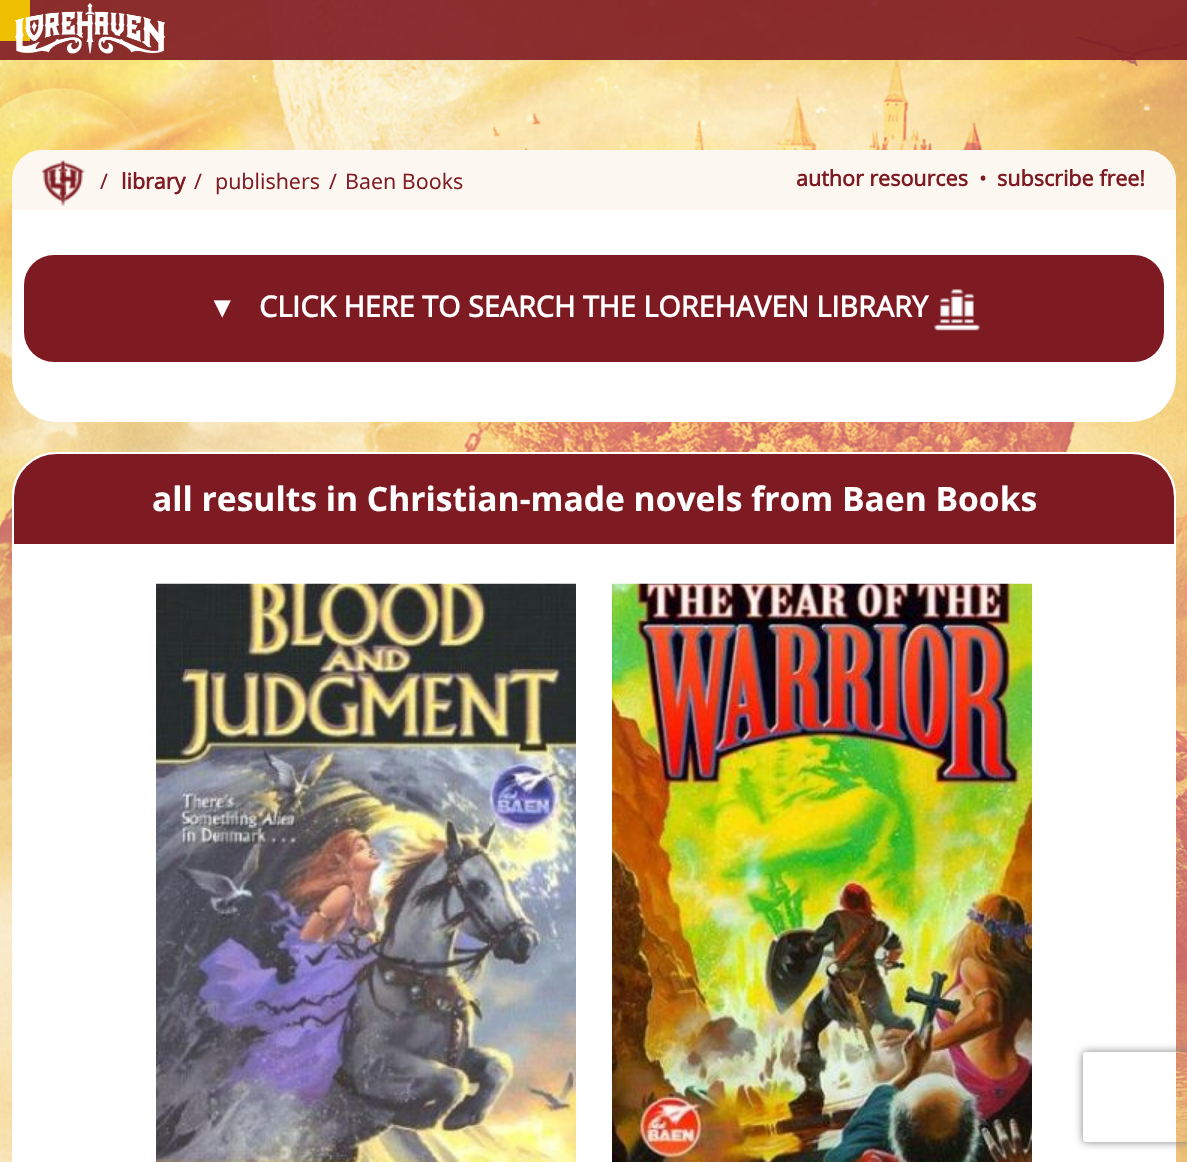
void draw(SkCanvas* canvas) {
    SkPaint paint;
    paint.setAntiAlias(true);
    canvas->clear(0xFFFFFFFF);
    canvas->drawImageRect(SkImages::DeferredFromEncodedData(SkData::MakeFromFileName("img1.png")), SkRect::MakeXYWH(0, 0, 1187, 1162), SkSamplingOptions());
    paint.setColor(0xE67E1A22);
    canvas->drawRect(SkRect::MakeXYWH(0, 0, 1187, 60), paint);
    paint.setColor(0xFFEFBF04);
    canvas->drawRect(SkRect::MakeXYWH(0, 0, 30, 41), paint);
    canvas->drawImageRect(SkImages::DeferredFromEncodedData(SkData::MakeFromFileName("img2.png")), SkRect::MakeXYWH(15, 3, 150, 51), SkSamplingOptions());
    paint.setColor(0xFFFFFFFF);
    canvas->drawRoundRect(SkRect::MakeXYWH(12, 150, 1164, 272), 45, 45, paint);
    paint.setColor(0xFFFCF7F0);
    canvas->drawPath(SkPathBuilder().moveTo(42, 150).lineTo(1146, 150).cubicTo(1162.5f, 150, 1176, 163.5f, 1176, 180).lineTo(1176, 210).lineTo(12, 210).lineTo(12, 180).cubicTo(12, 163.5f, 25.5f, 150, 42, 150).close().detach(), paint);
    canvas->drawImageRect(SkImages::DeferredFromEncodedData(SkData::MakeFromFileName("img3.png")), SkRect::MakeXYWH(42, 160, 43, 46), SkSamplingOptions());
    SkFont font1(fontMgr->matchFamilyStyle("Open Sans", SkFontStyle::Normal()), 21.5f);
    font1.setSubpixel(true);
    paint.setColor(0xFF7E1A22);
    canvas->drawString("/", 100, 189, font1, paint);
    SkFont font2(fontMgr->matchFamilyStyle("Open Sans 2", SkFontStyle::Bold()), 21.5f);
    font2.setSubpixel(true);
    canvas->drawString("library", 121, 189, font2, paint);
    canvas->drawString("/", 194, 189, font1, paint);
    canvas->drawString("publishers", 215, 189, font1, paint);
    canvas->drawString("/", 329, 189, font1, paint);
    canvas->drawString("Baen Books", 345, 189, font1, paint);
    canvas->drawString("author resources", 796, 186, font2, paint);
    canvas->drawString("•", 979, 186, font1, paint);
    canvas->drawString("subscribe free!", 997, 186, font2, paint);
    canvas->drawRoundRect(SkRect::MakeXYWH(24, 255, 1140, 107), 30, 30, paint);
    SkFont font3(fontMgr->matchFamilyStyle("Liberation Sans", SkFontStyle::Bold()), 28.8f);
    font3.setSubpixel(true);
    paint.setColor(0xFFFFFFFF);
    canvas->drawString("▼", 208, 317, font3, paint);
    SkFont font4(fontMgr->matchFamilyStyle("Open Sans 2", SkFontStyle::Bold()), 28.8f);
    font4.setSubpixel(true);
    canvas->drawString("CLICK HERE TO SEARCH THE LOREHAVEN LIBRARY", 259, 317, font4, paint);
    canvas->drawImageRect(SkImages::DeferredFromEncodedData(SkData::MakeFromFileName("img4.png")), SkRect::MakeXYWH(934, 289, 46, 42), SkSamplingOptions());
    canvas->drawRoundRect(SkRect::MakeXYWH(12, 452, 1164, 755), 45, 45, paint);
    paint.setColor(0xFF7E1A22);
    canvas->drawPath(SkPathBuilder().moveTo(57, 453).lineTo(1131, 453).cubicTo(1155.5f, 453, 1175, 472.5f, 1175, 497).lineTo(1175, 545).lineTo(13, 545).lineTo(13, 497).cubicTo(13, 472.5f, 32.5f, 453, 57, 453).close().detach(), paint);
    paint.setStyle(SkPaint::kStroke_Style);
    paint.setStrokeWidth(2);
    paint.setColor(0xFFFFFFFF);
    canvas->drawPath(SkPathBuilder().moveTo(57, 453).lineTo(1131, 453).cubicTo(1155.5f, 453, 1175, 472.5f, 1175, 497).lineTo(1175, 545).lineTo(13, 545).lineTo(13, 497).cubicTo(13, 472.5f, 32.5f, 453, 57, 453).close().detach(), paint);
    SkFont font5(fontMgr->matchFamilyStyle("Open Sans", SkFontStyle::Bold()), 33.6f);
    font5.setSubpixel(true);
    paint.setStyle(SkPaint::kFill_Style);
    canvas->drawString("all results in Christian-made novels from Baen Books", 152, 511, font5, paint);
    canvas->drawImageRect(SkImages::DeferredFromEncodedData(SkData::MakeFromFileName("img5.png")), SkRect::MakeXYWH(156, 583, 420, 579), SkSamplingOptions());
    canvas->drawImageRect(SkImages::DeferredFromEncodedData(SkData::MakeFromFileName("img6.png")), SkRect::MakeXYWH(612, 583, 420, 579), SkSamplingOptions());
    canvas->save();
    canvas->clipPath(SkPathBuilder(SkPathFillType::kEvenOdd).moveTo(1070, 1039).lineTo(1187, 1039).lineTo(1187, 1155).lineTo(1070, 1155).close().moveTo(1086, 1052).lineTo(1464, 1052).cubicTo(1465.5f, 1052, 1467, 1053.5f, 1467, 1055).lineTo(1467, 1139).cubicTo(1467, 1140.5f, 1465.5f, 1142, 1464, 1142).lineTo(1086, 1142).cubicTo(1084.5f, 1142, 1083, 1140.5f, 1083, 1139).lineTo(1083, 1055).cubicTo(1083, 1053.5f, 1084.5f, 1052, 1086, 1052).close().detach(), true);
    paint.setColor(0xFF808080);
    paint.setMaskFilter(SkMaskFilter::MakeBlur(kNormal_SkBlurStyle, 4));
    canvas->drawRoundRect(SkRect::MakeXYWH(1083, 1052, 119, 90), 3, 3, paint);
    paint.setMaskFilter(nullptr);
    canvas->restore();
}
